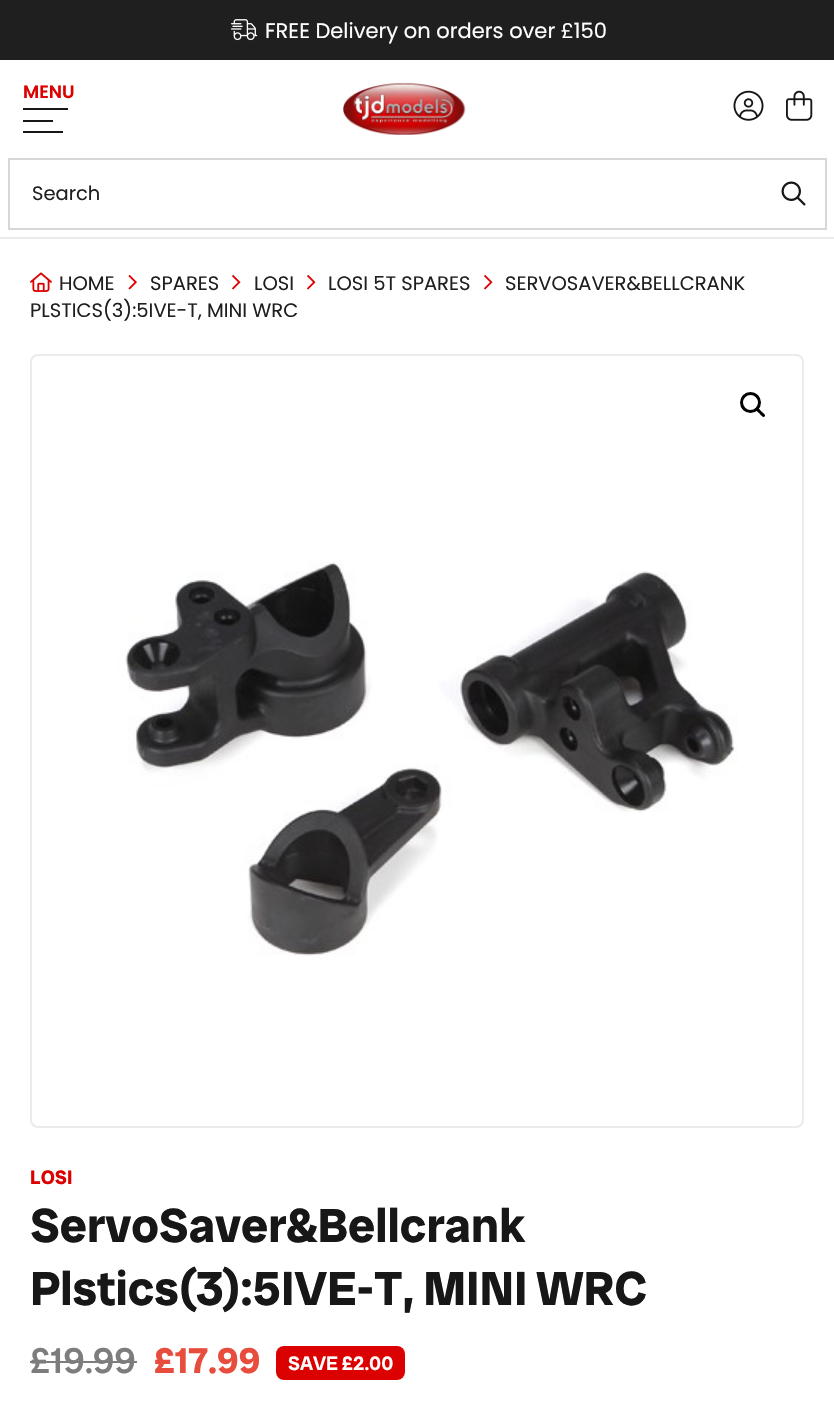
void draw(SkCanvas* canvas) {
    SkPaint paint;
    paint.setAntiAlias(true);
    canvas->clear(0xFFFFFFFF);
    paint.setColor(0xFF1F1F1F);
    canvas->drawRect(SkRect::MakeXYWH(0, 0, 834, 60), paint);
    canvas->drawImageRect(SkImages::DeferredFromEncodedData(SkData::MakeFromFileName("img1.png")), SkRect::MakeXYWH(231, 19, 27, 22), SkSamplingOptions());
    SkFont font1(fontMgr->matchFamilyStyle("Poppins", SkFontStyle::Normal()), 21);
    font1.setSubpixel(true);
    paint.setColor(0xFFFFFFFF);
    canvas->drawString("FREE Delivery on orders over £150", 265, 38, font1, paint);
    SkFont font2(fontMgr->matchFamilyStyle("Poppins", SkFontStyle(600, SkFontStyle::kNormal_Width, SkFontStyle::kUpright_Slant)), 18);
    font2.setSubpixel(true);
    paint.setColor(0xFFDB0100);
    canvas->drawString("MENU", 23, 98, font2, paint);
    paint.setColor(0xFF171717);
    canvas->drawRect(SkRect::MakeXYWH(23, 108, 45, 2), paint);
    canvas->drawRect(SkRect::MakeXYWH(23, 120, 30, 2), paint);
    canvas->drawRect(SkRect::MakeXYWH(23, 131, 40, 2), paint);
    canvas->drawImageRect(SkImages::DeferredFromEncodedData(SkData::MakeFromFileName("img2.png")), SkRect::MakeXYWH(342, 82, 124, 53), SkSamplingOptions());
    canvas->drawImageRect(SkImages::DeferredFromEncodedData(SkData::MakeFromFileName("img3.png")), SkRect::MakeXYWH(733, 90, 31, 31), SkSamplingOptions());
    canvas->drawImageRect(SkImages::DeferredFromEncodedData(SkData::MakeFromFileName("img4.png")), SkRect::MakeXYWH(786, 90, 27, 31), SkSamplingOptions());
    paint.setStyle(SkPaint::kStroke_Style);
    paint.setStrokeWidth(2);
    paint.setColor(0xFFD7D7D7);
    canvas->drawRect(SkRect::MakeXYWH(9, 159, 817, 70), paint);
    SkFont font3(fontMgr->matchFamilyStyle("Poppins", SkFontStyle::Normal()), 19.5f);
    font3.setSubpixel(true);
    paint.setStyle(SkPaint::kFill_Style);
    paint.setColor(0xFF1F1F1F);
    canvas->drawString("Search", 32, 200, font3, paint);
    canvas->drawImageRect(SkImages::DeferredFromEncodedData(SkData::MakeFromFileName("img5.png")), SkRect::MakeXYWH(781, 181, 25, 25), SkSamplingOptions());
    paint.setColor(0xFFEBEBEB);
    canvas->drawRect(SkRect::MakeXYWH(0, 237, 834, 2), paint);
    canvas->drawImageRect(SkImages::DeferredFromEncodedData(SkData::MakeFromFileName("img6.png")), SkRect::MakeXYWH(30, 272, 22, 20), SkSamplingOptions());
    paint.setColor(0xFF1F1F1F);
    canvas->drawString("HOME", 59, 290, font3, paint);
    canvas->drawImageRect(SkImages::DeferredFromEncodedData(SkData::MakeFromFileName("img7.png")), SkRect::MakeXYWH(128, 274, 9, 16), SkSamplingOptions());
    canvas->drawString("SPARES", 150, 290, font3, paint);
    canvas->drawImageRect(SkImages::DeferredFromEncodedData(SkData::MakeFromFileName("img8.png")), SkRect::MakeXYWH(232, 274, 9, 16), SkSamplingOptions());
    canvas->drawString("LOSI", 254, 290, font3, paint);
    canvas->drawImageRect(SkImages::DeferredFromEncodedData(SkData::MakeFromFileName("img8.png")), SkRect::MakeXYWH(307, 274, 9, 16), SkSamplingOptions());
    canvas->drawString("LOSI 5T SPARES", 328, 290, font3, paint);
    canvas->drawImageRect(SkImages::DeferredFromEncodedData(SkData::MakeFromFileName("img8.png")), SkRect::MakeXYWH(484, 274, 9, 16), SkSamplingOptions());
    canvas->drawString("SERVOSAVER&BELLCRANK", 505, 290, font3, paint);
    canvas->drawString("PLSTICS(3):5IVE-T, MINI WRC", 30, 317, font3, paint);
    paint.setStyle(SkPaint::kStroke_Style);
    paint.setColor(0xFFEBEBEB);
    canvas->drawRoundRect(SkRect::MakeXYWH(31, 355, 772, 772), 7, 7, paint);
    canvas->drawImageRect(SkImages::DeferredFromEncodedData(SkData::MakeFromFileName("img9.png")), SkRect::MakeXYWH(117, 561, 621, 395), SkSamplingOptions());
    paint.setStrokeWidth(3);
    paint.setColor(0xFF000000);
    canvas->drawCircle(750.5f, 402.5f, 9, paint);
    paint.setStyle(SkPaint::kFill_Style);
    canvas->drawPath(SkPathBuilder().moveTo(756.5f, 408.5f).cubicTo(758, 406.5f, 760.5f, 410.5f, 761.5f, 411.5f).cubicTo(762.5f, 412.5f, 766.5f, 415, 764.5f, 416.5f).cubicTo(763, 418.5f, 760.5f, 414.5f, 759.5f, 413.5f).cubicTo(758.5f, 412.5f, 754.5f, 410, 756.5f, 408.5f).close().detach(), paint);
    SkFont font4(fontMgr->matchFamilyStyle("Radio Canada Big", SkFontStyle::Bold()), 19.5f);
    font4.setSubpixel(true);
    paint.setColor(0xFFDB0100);
    canvas->drawString("LOSI", 30, 1184, font4, paint);
    SkFont font5(fontMgr->matchFamilyStyle("Radio Canada Big", SkFontStyle::Bold()), 48);
    font5.setSubpixel(true);
    paint.setColor(0xFF171717);
    canvas->drawString("ServoSaver&Bellcrank", 30, 1242, font5, paint);
    canvas->drawString("Plstics(3):5IVE-T, MINI WRC", 30, 1305, font5, paint);
    SkFont font6(fontMgr->matchFamilyStyle("Radio Canada Big", SkFontStyle(500, SkFontStyle::kNormal_Width, SkFontStyle::kUpright_Slant)), 36);
    font6.setSubpixel(true);
    paint.setColor(0xFF7D7D7D);
    canvas->drawString("£19.99", 30, 1373, font6, paint);
    canvas->drawRect(SkRect::MakeXYWH(30, 1361, 107, 2), paint);
    SkFont font7(fontMgr->matchFamilyStyle("Radio Canada Big", SkFontStyle::Bold()), 36);
    font7.setSubpixel(true);
    paint.setColor(0xFFE74C3C);
    canvas->drawString("£17.99", 154, 1373, font7, paint);
    paint.setColor(0xFFDB0100);
    canvas->drawRoundRect(SkRect::MakeXYWH(276, 1346, 129, 34), 8, 8, paint);
    SkFont font8(fontMgr->matchFamilyStyle("Radio Canada Big", SkFontStyle(600, SkFontStyle::kNormal_Width, SkFontStyle::kUpright_Slant)), 19.5f);
    font8.setSubpixel(true);
    paint.setColor(0xFFFFFFFF);
    canvas->drawString("SAVE £2.00", 288, 1370, font8, paint);
}
